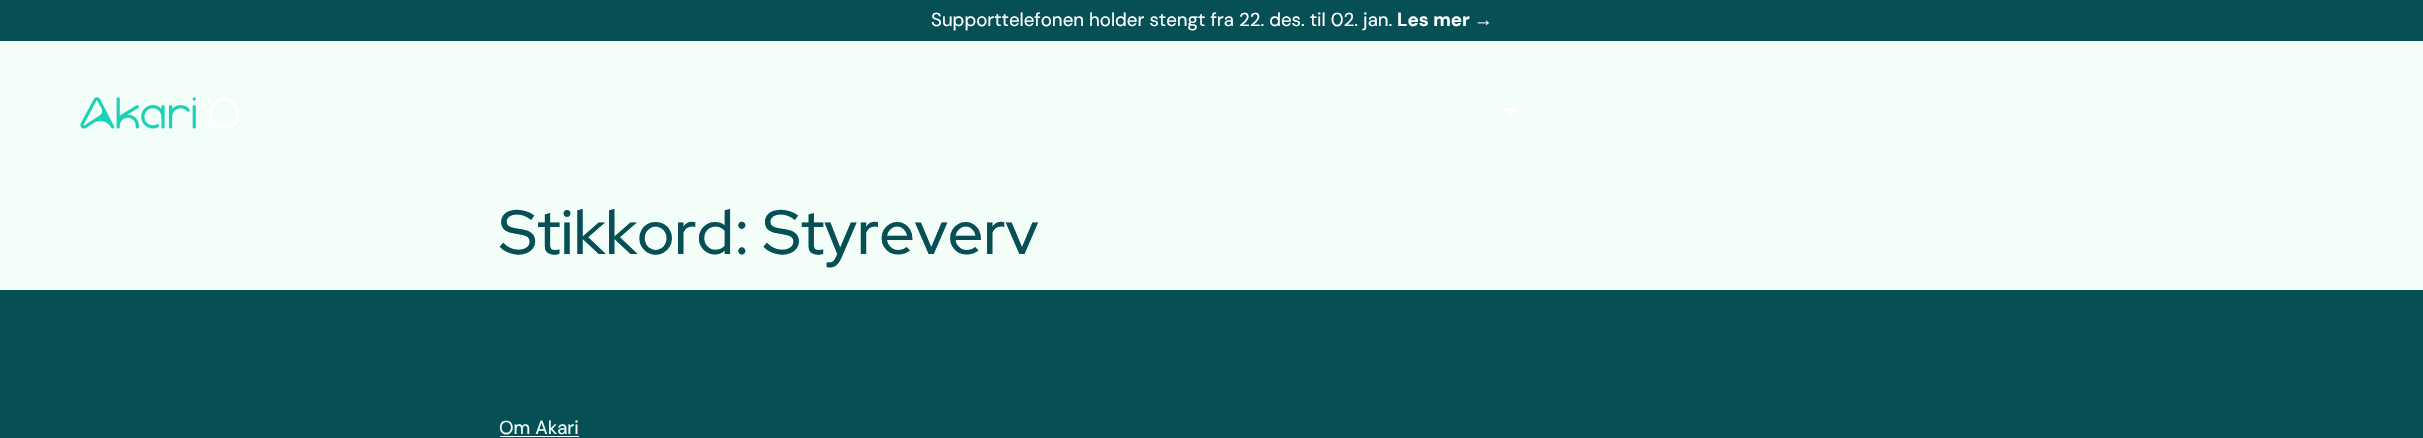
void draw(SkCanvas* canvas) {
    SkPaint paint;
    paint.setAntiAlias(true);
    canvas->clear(0xFFF4FEF8);
    paint.setColor(0xFF064F55);
    canvas->drawRect(SkRect::MakeXYWH(0, 0, 2423, 41), paint);
    SkFont font1(fontMgr->matchFamilyStyle("DM Sans", SkFontStyle::Normal()), 18.75f);
    font1.setSubpixel(true);
    paint.setColor(0xFFFFFFFF);
    canvas->drawString("Supporttelefonen holder stengt fra 22. des. til 02. jan.", 931, 26, font1, paint);
    SkFont font2(fontMgr->matchFamilyStyle("DM Sans", SkFontStyle::Bold()), 18.75f);
    font2.setSubpixel(true);
    canvas->drawString("Les mer", 1397, 26, font2, paint);
    SkFont font3(fontMgr->matchFamilyStyle("Liberation Sans", SkFontStyle::Bold()), 18.75f);
    font3.setSubpixel(true);
    canvas->drawString("→", 1474, 26, font3, paint);
    canvas->drawImageRect(SkImages::DeferredFromEncodedData(SkData::MakeFromFileName("img1.png")), SkRect::MakeXYWH(80, 97, 160, 32), SkSamplingOptions());
    canvas->drawImageRect(SkImages::DeferredFromEncodedData(SkData::MakeFromFileName("img2.png")), SkRect::MakeXYWH(1503, 108, 14, 8), SkSamplingOptions());
    SkFont font4(fontMgr->matchFamilyStyle("Red Hat Display", SkFontStyle(500, SkFontStyle::kNormal_Width, SkFontStyle::kUpright_Slant)), 62.5f);
    font4.setSubpixel(true);
    paint.setColor(0xFF064F55);
    canvas->drawString("Stikkord: Styreverv", 499, 254, font4, paint);
    canvas->drawRect(SkRect::MakeXYWH(0, 290, 2423, 148), paint);
    paint.setColor(0xFFF4FEF8);
    canvas->drawString("Om Akari", 499, 434, font1, paint);
    canvas->drawRect(SkRect::MakeXYWH(500, 436, 79, 1), paint);
}
